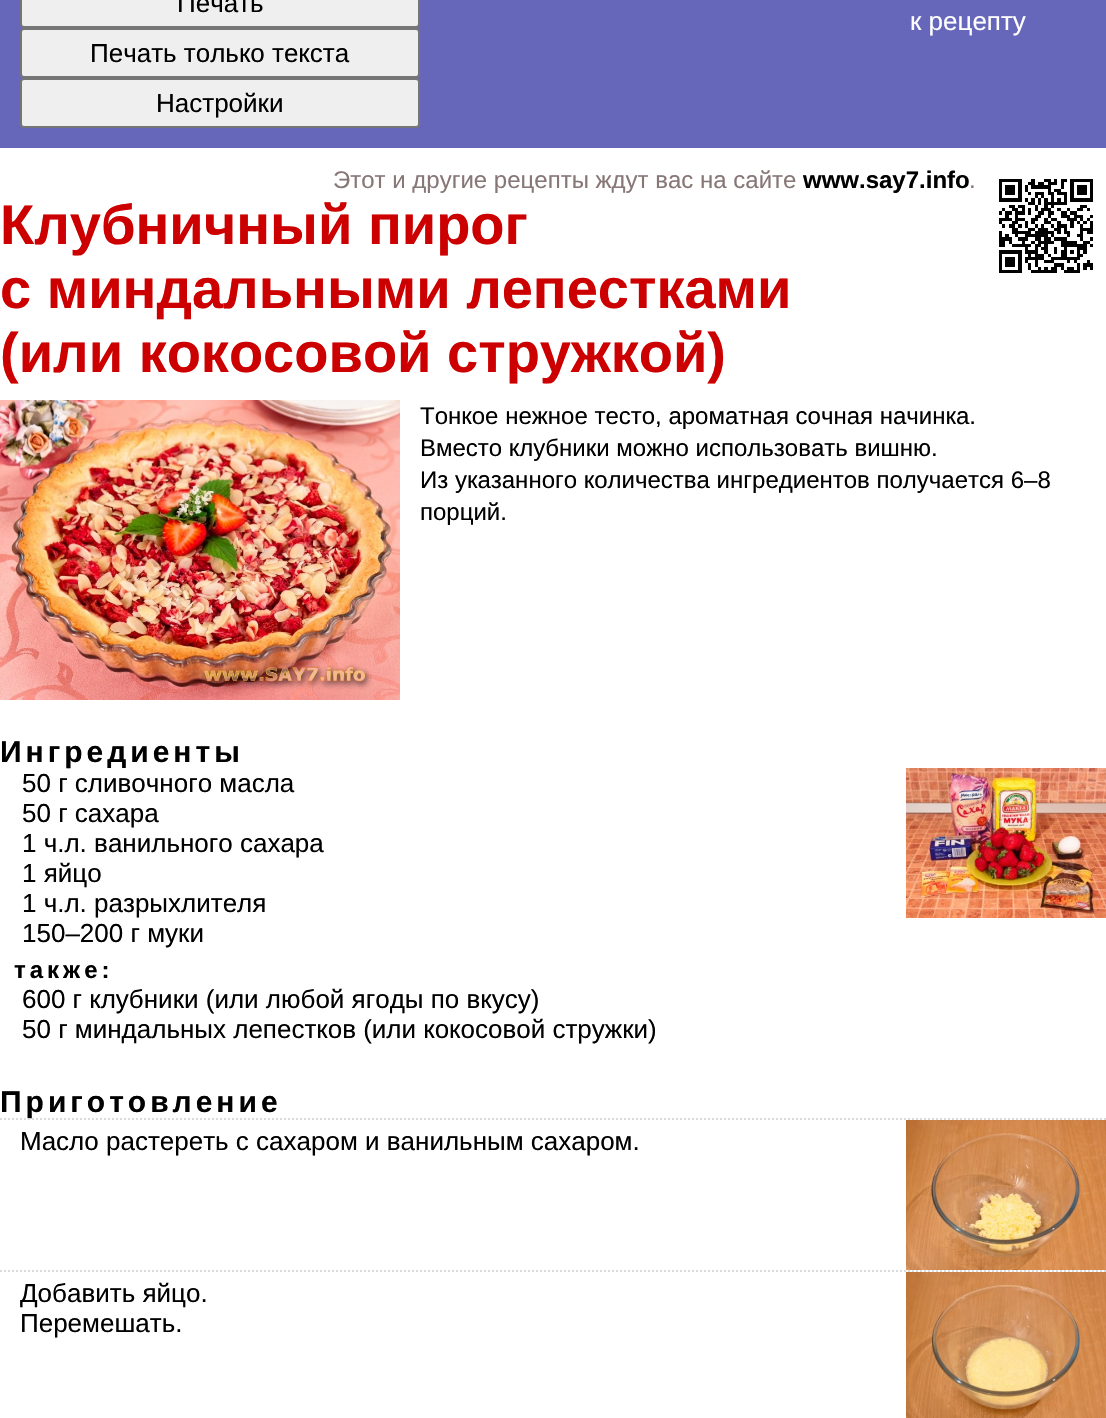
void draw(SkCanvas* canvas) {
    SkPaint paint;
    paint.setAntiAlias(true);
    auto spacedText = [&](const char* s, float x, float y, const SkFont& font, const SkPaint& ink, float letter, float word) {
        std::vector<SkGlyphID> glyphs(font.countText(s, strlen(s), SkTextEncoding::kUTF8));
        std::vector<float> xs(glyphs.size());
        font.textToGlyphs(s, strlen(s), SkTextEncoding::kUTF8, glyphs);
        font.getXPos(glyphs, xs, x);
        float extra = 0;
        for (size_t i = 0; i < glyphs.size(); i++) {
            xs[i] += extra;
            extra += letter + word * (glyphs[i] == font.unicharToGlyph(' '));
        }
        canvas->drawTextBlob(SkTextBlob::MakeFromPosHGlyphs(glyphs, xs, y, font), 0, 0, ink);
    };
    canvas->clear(0xFFFFFFFF);
    paint.setColor(0xFF6666BB);
    canvas->drawRect(SkRect::MakeXYWH(0, 0, 1106, 148), paint);
    paint.setColor(0xFFEFEFEF);
    canvas->drawRoundRect(SkRect::MakeXYWH(21, -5, 398, 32), 3, 3, paint);
    paint.setStyle(SkPaint::kStroke_Style);
    paint.setStrokeWidth(2);
    paint.setColor(0xFF767676);
    canvas->drawRoundRect(SkRect::MakeXYWH(21, -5, 398, 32), 3, 3, paint);
    SkFont font1(fontMgr->matchFamilyStyle("Liberation Sans", SkFontStyle::Normal()), 26);
    font1.setSubpixel(true);
    paint.setStyle(SkPaint::kFill_Style);
    paint.setColor(0xFF000000);
    canvas->drawString("Печать", 177, 12, font1, paint);
    paint.setColor(0xFFFFFFFF);
    canvas->drawString("к рецепту", 910, 30, font1, paint);
    paint.setColor(0xFFEFEFEF);
    canvas->drawRoundRect(SkRect::MakeXYWH(21, 29, 398, 48), 3, 3, paint);
    paint.setStyle(SkPaint::kStroke_Style);
    paint.setColor(0xFF767676);
    canvas->drawRoundRect(SkRect::MakeXYWH(21, 29, 398, 48), 3, 3, paint);
    paint.setStyle(SkPaint::kFill_Style);
    paint.setColor(0xFF000000);
    canvas->drawString("Печать только текста", 90, 62, font1, paint);
    paint.setColor(0xFFEFEFEF);
    canvas->drawRoundRect(SkRect::MakeXYWH(21, 79, 398, 48), 3, 3, paint);
    paint.setStyle(SkPaint::kStroke_Style);
    paint.setColor(0xFF767676);
    canvas->drawRoundRect(SkRect::MakeXYWH(21, 79, 398, 48), 3, 3, paint);
    paint.setStyle(SkPaint::kFill_Style);
    paint.setColor(0xFF000000);
    canvas->drawString("Настройки", 156, 112, font1, paint);
    SkFont font2(fontMgr->matchFamilyStyle("Liberation Sans", SkFontStyle::Normal()), 24);
    font2.setSubpixel(true);
    paint.setColor(0xFF887777);
    canvas->drawString("Этот и другие рецепты ждут вас на сайте", 333, 188, font2, paint);
    SkFont font3(fontMgr->matchFamilyStyle("Liberation Sans", SkFontStyle::Bold()), 24);
    font3.setSubpixel(true);
    paint.setColor(0xFF000000);
    canvas->drawString("www.say7.info", 803, 188, font3, paint);
    paint.setColor(0xFF887777);
    canvas->drawString(".", 969, 188, font2, paint);
    canvas->drawImageRect(SkImages::DeferredFromEncodedData(SkData::MakeFromFileName("img1.png")), SkRect::MakeXYWH(999, 179, 94, 94), SkSamplingOptions());
    SkFont font4(fontMgr->matchFamilyStyle("Liberation Sans", SkFontStyle::Bold()), 56);
    font4.setSubpixel(true);
    paint.setColor(0xFFCC0000);
    canvas->drawString("Клубничный пирог", 0, 244, font4, paint);
    canvas->drawString("с миндальными лепестками", 0, 308, font4, paint);
    canvas->drawString("(или кокосовой стружкой)", 0, 372, font4, paint);
    canvas->drawImageRect(SkImages::DeferredFromEncodedData(SkData::MakeFromFileName("img2.png")), SkRect::MakeXYWH(0, 400, 400, 300), SkSamplingOptions());
    paint.setColor(0xFF000000);
    canvas->drawString("Тонкое нежное тесто, ароматная сочная начинка.", 420, 424, font2, paint);
    canvas->drawString("Вместо клубники можно использовать вишню.", 420, 456, font2, paint);
    canvas->drawString("Из указанного количества ингредиентов получается 6–8", 420, 488, font2, paint);
    canvas->drawString("порций.", 420, 520, font2, paint);
    SkFont font5(fontMgr->matchFamilyStyle("Liberation Sans", SkFontStyle::Bold()), 30);
    font5.setSubpixel(true);
    spacedText("Ингредиенты", 0, 762, font5, paint, 4, 0);
    canvas->drawString("50 г сливочного масла", 22, 792, font1, paint);
    canvas->drawString("50 г сахара", 22, 822, font1, paint);
    canvas->drawString("1 ч.л. ванильного сахара", 22, 852, font1, paint);
    canvas->drawString("1 яйцо", 22, 882, font1, paint);
    canvas->drawString("1 ч.л. разрыхлителя", 22, 912, font1, paint);
    canvas->drawString("150–200 г муки", 22, 942, font1, paint);
    spacedText("также:", 14, 978, font3, paint, 4, 0);
    canvas->drawString("600 г клубники (или любой ягоды по вкусу)", 22, 1008, font1, paint);
    canvas->drawString("50 г миндальных лепестков (или кокосовой стружки)", 22, 1038, font1, paint);
    canvas->drawImageRect(SkImages::DeferredFromEncodedData(SkData::MakeFromFileName("img3.png")), SkRect::MakeXYWH(906, 768, 200, 150), SkSamplingOptions());
    spacedText("Приготовление", 0, 1112, font5, paint, 4, 0);
    paint.setStyle(SkPaint::kStroke_Style);
    paint.setColor(0xFFDBDBDB);
    paint.setPathEffect(SkDashPathEffect::Make({{2, 2}}, 0));
    canvas->drawPath(SkPathBuilder().moveTo(0, 1119).lineTo(1106, 1119).detach(), paint);
    paint.setPathEffect(nullptr);
    paint.setStyle(SkPaint::kFill_Style);
    paint.setColor(0xFF000000);
    canvas->drawString("Масло растереть с сахаром и ванильным сахаром.", 20, 1150, font1, paint);
    canvas->drawImageRect(SkImages::DeferredFromEncodedData(SkData::MakeFromFileName("img4.png")), SkRect::MakeXYWH(906, 1120, 200, 150), SkSamplingOptions());
    paint.setStyle(SkPaint::kStroke_Style);
    paint.setColor(0xFFDBDBDB);
    paint.setPathEffect(SkDashPathEffect::Make({{2, 2}}, 0));
    canvas->drawPath(SkPathBuilder().moveTo(0, 1271).lineTo(1106, 1271).detach(), paint);
    paint.setPathEffect(nullptr);
    paint.setStyle(SkPaint::kFill_Style);
    paint.setColor(0xFF000000);
    canvas->drawString("Добавить яйцо.", 20, 1302, font1, paint);
    canvas->drawImageRect(SkImages::DeferredFromEncodedData(SkData::MakeFromFileName("img5.png")), SkRect::MakeXYWH(906, 1272, 200, 146), SkSamplingOptions());
    canvas->drawString("Перемешать.", 20, 1332, font1, paint);
}
